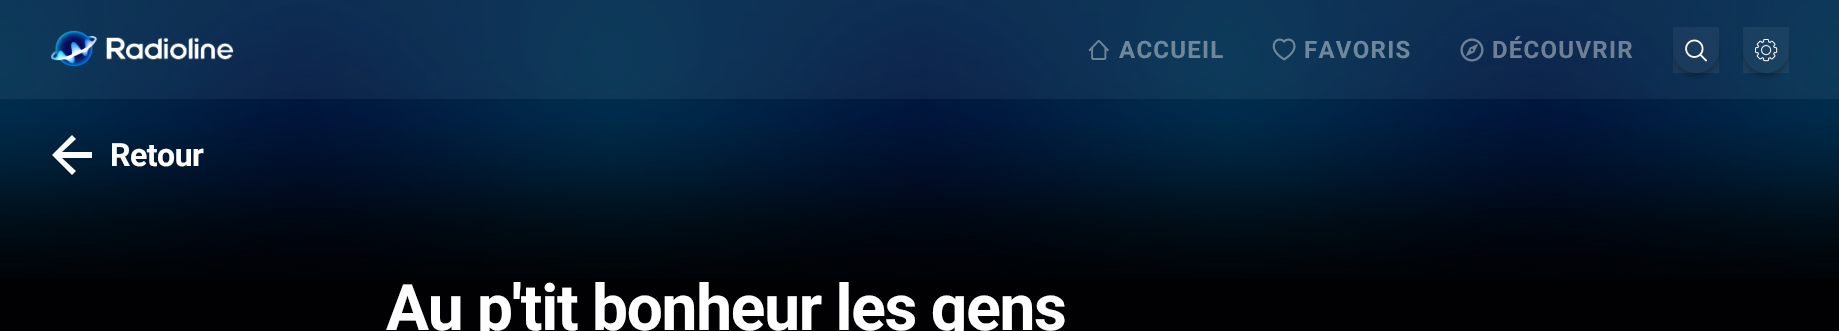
void draw(SkCanvas* canvas) {
    SkPaint paint;
    paint.setAntiAlias(true);
    auto spacedText = [&](const char* s, float x, float y, const SkFont& font, const SkPaint& ink, float letter, float word) {
        std::vector<SkGlyphID> glyphs(font.countText(s, strlen(s), SkTextEncoding::kUTF8));
        std::vector<float> xs(glyphs.size());
        font.textToGlyphs(s, strlen(s), SkTextEncoding::kUTF8, glyphs);
        font.getXPos(glyphs, xs, x);
        float extra = 0;
        for (size_t i = 0; i < glyphs.size(); i++) {
            xs[i] += extra;
            extra += letter + word * (glyphs[i] == font.unicharToGlyph(' '));
        }
        canvas->drawTextBlob(SkTextBlob::MakeFromPosHGlyphs(glyphs, xs, y, font), 0, 0, ink);
    };
    canvas->clear(0xFF010103);
    canvas->drawImageRect(SkImages::DeferredFromEncodedData(SkData::MakeFromFileName("img1.png")), SkRect::MakeXYWH(0, 0, 1839, 279), SkSamplingOptions());
    paint.setColor(0x0DFFFFFF);
    canvas->drawRect(SkRect::MakeXYWH(0, 0, 1839, 99), paint);
    canvas->drawImageRect(SkImages::DeferredFromEncodedData(SkData::MakeFromFileName("img2.png")), SkRect::MakeXYWH(51, 30, 183, 37), SkSamplingOptions());
    canvas->drawImageRect(SkImages::DeferredFromEncodedData(SkData::MakeFromFileName("img3.png")), SkRect::MakeXYWH(1088, 40, 21, 20), SkSamplingOptions());
    SkFont font1(fontMgr->matchFamilyStyle("Roboto", SkFontStyle::Bold()), 24);
    font1.setSubpixel(true);
    paint.setColor(0xFF6E879B);
    spacedText("ACCUEIL", 1119, 58, font1, paint, 1.25f, 0);
    canvas->drawImageRect(SkImages::DeferredFromEncodedData(SkData::MakeFromFileName("img4.png")), SkRect::MakeXYWH(1272, 38, 24, 23), SkSamplingOptions());
    spacedText("FAVORIS", 1304, 58, font1, paint, 1.25f, 0);
    canvas->drawImageRect(SkImages::DeferredFromEncodedData(SkData::MakeFromFileName("img5.png")), SkRect::MakeXYWH(1460, 38, 24, 24), SkSamplingOptions());
    paint.setColor(0xFF6E7F96);
    spacedText("DÉCOUVRIR", 1492, 58, font1, paint, 1.25f, 0);
    canvas->save();
    canvas->clipPath(SkPathBuilder(SkPathFillType::kEvenOdd).moveTo(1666, 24).lineTo(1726, 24).lineTo(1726, 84).lineTo(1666, 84).close().moveTo(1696, 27).cubicTo(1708.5f, 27, 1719, 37.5f, 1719, 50).cubicTo(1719, 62.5f, 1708.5f, 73, 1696, 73).cubicTo(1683.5f, 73, 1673, 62.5f, 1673, 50).cubicTo(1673, 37.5f, 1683.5f, 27, 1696, 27).close().detach(), true);
    paint.setColor(0x40000000);
    paint.setMaskFilter(SkMaskFilter::MakeBlur(kNormal_SkBlurStyle, 2));
    canvas->drawRoundRect(SkRect::MakeXYWH(1673, 31, 46, 46), 23, 23, paint);
    paint.setMaskFilter(nullptr);
    canvas->restore();
    paint.setColor(0x0DFFFFFF);
    canvas->drawRect(SkRect::MakeXYWH(1673, 27, 46, 46), paint);
    canvas->drawImageRect(SkImages::DeferredFromEncodedData(SkData::MakeFromFileName("img6.png")), SkRect::MakeXYWH(1685, 39, 22, 23), SkSamplingOptions());
    canvas->save();
    canvas->clipPath(SkPathBuilder(SkPathFillType::kEvenOdd).moveTo(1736, 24).lineTo(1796, 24).lineTo(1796, 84).lineTo(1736, 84).close().moveTo(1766, 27).cubicTo(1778.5f, 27, 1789, 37.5f, 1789, 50).cubicTo(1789, 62.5f, 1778.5f, 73, 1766, 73).cubicTo(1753.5f, 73, 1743, 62.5f, 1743, 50).cubicTo(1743, 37.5f, 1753.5f, 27, 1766, 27).close().detach(), true);
    paint.setColor(0x40000000);
    paint.setMaskFilter(SkMaskFilter::MakeBlur(kNormal_SkBlurStyle, 2));
    canvas->drawRoundRect(SkRect::MakeXYWH(1743, 31, 46, 46), 23, 23, paint);
    paint.setMaskFilter(nullptr);
    canvas->restore();
    paint.setColor(0x0DFFFFFF);
    canvas->drawRect(SkRect::MakeXYWH(1743, 27, 46, 46), paint);
    canvas->drawImageRect(SkImages::DeferredFromEncodedData(SkData::MakeFromFileName("img7.png")), SkRect::MakeXYWH(1755, 39, 23, 23), SkSamplingOptions());
    paint.setColor(0xFFFFFFFF);
    canvas->drawPath(SkPathBuilder().moveTo(92, 152).lineTo(62, 152).lineTo(76, 139).lineTo(72, 135).lineTo(52, 155).lineTo(72, 175).lineTo(76, 171).lineTo(62, 158).lineTo(92, 158).close().detach(), paint);
    SkFont font2(fontMgr->matchFamilyStyle("Roboto", SkFontStyle::Bold()), 32);
    font2.setSubpixel(true);
    spacedText("Retour", 110, 166, font2, paint, -0.5f, 0);
    SkFont font3(fontMgr->matchFamilyStyle("Roboto", SkFontStyle::Bold()), 64);
    font3.setSubpixel(true);
    spacedText("Au p'tit bonheur les gens", 386, 330, font3, paint, -1.25f, 0);
}
